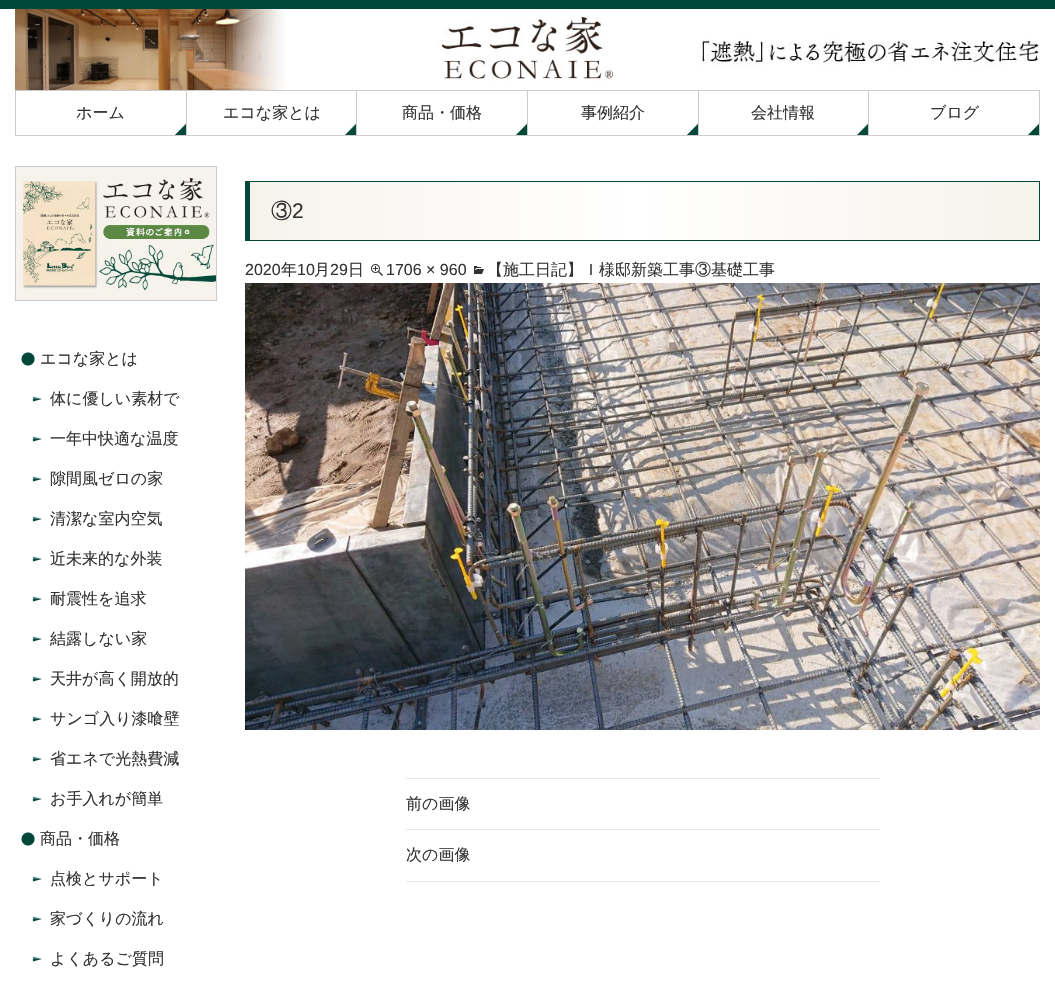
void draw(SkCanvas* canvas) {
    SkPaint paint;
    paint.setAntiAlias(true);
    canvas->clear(0xFFFFFFFF);
    paint.setColor(0xFF00493A);
    canvas->drawRect(SkRect::MakeXYWH(0, 0, 1055, 9), paint);
    canvas->drawImageRect(SkImages::DeferredFromEncodedData(SkData::MakeFromFileName("img1.png")), SkRect::MakeXYWH(15, 9, 1025, 81), SkSamplingOptions());
    paint.setColor(0xFFCCCCCC);
    canvas->drawRect(SkRect::MakeXYWH(15, 90, 1, 46), paint);
    canvas->drawImageRect(SkImages::DeferredFromEncodedData(SkData::MakeFromFileName("img2.png")), SkRect::MakeXYWH(175, 123, 11, 12), SkSamplingOptions());
    canvas->drawRect(SkRect::MakeXYWH(16, 90, 1024, 1), paint);
    canvas->drawRect(SkRect::MakeXYWH(186, 90, 1, 46), paint);
    canvas->drawRect(SkRect::MakeXYWH(16, 135, 171, 1), paint);
    SkFont font1(fontMgr->matchFamilyStyle("WenQuanYi Zen Hei", SkFontStyle(500, SkFontStyle::kNormal_Width, SkFontStyle::kUpright_Slant)), 16);
    font1.setSubpixel(true);
    paint.setColor(0xFF333333);
    canvas->drawString("ホーム", 76, 118, font1, paint);
    canvas->drawImageRect(SkImages::DeferredFromEncodedData(SkData::MakeFromFileName("img3.png")), SkRect::MakeXYWH(345, 123, 11, 12), SkSamplingOptions());
    paint.setColor(0xFFCCCCCC);
    canvas->drawRect(SkRect::MakeXYWH(356, 90, 1, 46), paint);
    canvas->drawRect(SkRect::MakeXYWH(187, 135, 170, 1), paint);
    paint.setColor(0xFF333333);
    canvas->drawString("エコな家とは", 223, 118, font1, paint);
    canvas->drawImageRect(SkImages::DeferredFromEncodedData(SkData::MakeFromFileName("img2.png")), SkRect::MakeXYWH(516, 123, 11, 12), SkSamplingOptions());
    paint.setColor(0xFFCCCCCC);
    canvas->drawRect(SkRect::MakeXYWH(527, 90, 1, 46), paint);
    canvas->drawRect(SkRect::MakeXYWH(357, 135, 171, 1), paint);
    paint.setColor(0xFF333333);
    canvas->drawString("商品・価格", 402, 118, font1, paint);
    canvas->drawImageRect(SkImages::DeferredFromEncodedData(SkData::MakeFromFileName("img2.png")), SkRect::MakeXYWH(687, 123, 11, 12), SkSamplingOptions());
    paint.setColor(0xFFCCCCCC);
    canvas->drawRect(SkRect::MakeXYWH(698, 90, 1, 46), paint);
    canvas->drawRect(SkRect::MakeXYWH(528, 135, 171, 1), paint);
    paint.setColor(0xFF333333);
    canvas->drawString("事例紹介", 581, 118, font1, paint);
    canvas->drawImageRect(SkImages::DeferredFromEncodedData(SkData::MakeFromFileName("img3.png")), SkRect::MakeXYWH(857, 123, 11, 12), SkSamplingOptions());
    paint.setColor(0xFFCCCCCC);
    canvas->drawRect(SkRect::MakeXYWH(868, 90, 1, 46), paint);
    canvas->drawRect(SkRect::MakeXYWH(699, 135, 170, 1), paint);
    paint.setColor(0xFF333333);
    canvas->drawString("会社情報", 751, 118, font1, paint);
    canvas->drawImageRect(SkImages::DeferredFromEncodedData(SkData::MakeFromFileName("img2.png")), SkRect::MakeXYWH(1028, 123, 11, 12), SkSamplingOptions());
    paint.setColor(0xFFCCCCCC);
    canvas->drawRect(SkRect::MakeXYWH(1039, 90, 1, 46), paint);
    canvas->drawRect(SkRect::MakeXYWH(869, 135, 171, 1), paint);
    paint.setColor(0xFF333333);
    canvas->drawString("ブログ", 930, 118, font1, paint);
    paint.setStyle(SkPaint::kStroke_Style);
    paint.setStrokeWidth(1);
    paint.setColor(0xFFCCCCCC);
    canvas->drawRect(SkRect::MakeXYWH(15.5f, 166.5f, 201, 134), paint);
    canvas->drawImageRect(SkImages::DeferredFromEncodedData(SkData::MakeFromFileName("img4.png")), SkRect::MakeXYWH(16, 167, 200, 133), SkSamplingOptions());
    canvas->drawImageRect(SkImages::DeferredFromEncodedData(SkData::MakeFromFileName("img5.png")), SkRect::MakeXYWH(21, 352, 14, 14), SkSamplingOptions());
    paint.setStyle(SkPaint::kFill_Style);
    paint.setColor(0xFF333333);
    canvas->drawString("エコな家とは", 40, 364, font1, paint);
    canvas->drawImageRect(SkImages::DeferredFromEncodedData(SkData::MakeFromFileName("img6.png")), SkRect::MakeXYWH(32, 396, 10, 6), SkSamplingOptions());
    canvas->drawString("体に優しい素材で", 50, 404, font1, paint);
    canvas->drawImageRect(SkImages::DeferredFromEncodedData(SkData::MakeFromFileName("img6.png")), SkRect::MakeXYWH(32, 436, 10, 6), SkSamplingOptions());
    canvas->drawString("一年中快適な温度", 50, 444, font1, paint);
    canvas->drawImageRect(SkImages::DeferredFromEncodedData(SkData::MakeFromFileName("img6.png")), SkRect::MakeXYWH(32, 476, 10, 6), SkSamplingOptions());
    canvas->drawString("隙間風ゼロの家", 50, 484, font1, paint);
    canvas->drawImageRect(SkImages::DeferredFromEncodedData(SkData::MakeFromFileName("img6.png")), SkRect::MakeXYWH(32, 516, 10, 6), SkSamplingOptions());
    canvas->drawString("清潔な室内空気", 50, 524, font1, paint);
    canvas->drawImageRect(SkImages::DeferredFromEncodedData(SkData::MakeFromFileName("img6.png")), SkRect::MakeXYWH(32, 556, 10, 6), SkSamplingOptions());
    canvas->drawString("近未来的な外装", 50, 564, font1, paint);
    canvas->drawImageRect(SkImages::DeferredFromEncodedData(SkData::MakeFromFileName("img6.png")), SkRect::MakeXYWH(32, 596, 10, 6), SkSamplingOptions());
    canvas->drawString("耐震性を追求", 50, 604, font1, paint);
    canvas->drawImageRect(SkImages::DeferredFromEncodedData(SkData::MakeFromFileName("img6.png")), SkRect::MakeXYWH(32, 636, 10, 6), SkSamplingOptions());
    canvas->drawString("結露しない家", 50, 644, font1, paint);
    canvas->drawImageRect(SkImages::DeferredFromEncodedData(SkData::MakeFromFileName("img6.png")), SkRect::MakeXYWH(32, 676, 10, 6), SkSamplingOptions());
    canvas->drawString("天井が高く開放的", 50, 684, font1, paint);
    canvas->drawImageRect(SkImages::DeferredFromEncodedData(SkData::MakeFromFileName("img6.png")), SkRect::MakeXYWH(32, 716, 10, 6), SkSamplingOptions());
    canvas->drawString("サンゴ入り漆喰壁", 50, 724, font1, paint);
    canvas->drawImageRect(SkImages::DeferredFromEncodedData(SkData::MakeFromFileName("img6.png")), SkRect::MakeXYWH(32, 756, 10, 6), SkSamplingOptions());
    canvas->drawString("省エネで光熱費減", 50, 764, font1, paint);
    canvas->drawImageRect(SkImages::DeferredFromEncodedData(SkData::MakeFromFileName("img6.png")), SkRect::MakeXYWH(32, 796, 10, 6), SkSamplingOptions());
    canvas->drawString("お手入れが簡単", 50, 804, font1, paint);
    canvas->drawImageRect(SkImages::DeferredFromEncodedData(SkData::MakeFromFileName("img5.png")), SkRect::MakeXYWH(21, 832, 14, 14), SkSamplingOptions());
    canvas->drawString("商品・価格", 40, 844, font1, paint);
    canvas->drawImageRect(SkImages::DeferredFromEncodedData(SkData::MakeFromFileName("img6.png")), SkRect::MakeXYWH(32, 876, 10, 6), SkSamplingOptions());
    canvas->drawString("点検とサポート", 50, 884, font1, paint);
    canvas->drawImageRect(SkImages::DeferredFromEncodedData(SkData::MakeFromFileName("img6.png")), SkRect::MakeXYWH(32, 916, 10, 6), SkSamplingOptions());
    canvas->drawString("家づくりの流れ", 50, 924, font1, paint);
    canvas->drawImageRect(SkImages::DeferredFromEncodedData(SkData::MakeFromFileName("img6.png")), SkRect::MakeXYWH(32, 956, 10, 6), SkSamplingOptions());
    canvas->drawString("よくあるご質問", 50, 964, font1, paint);
    canvas->drawImageRect(SkImages::DeferredFromEncodedData(SkData::MakeFromFileName("img7.png")), SkRect::MakeXYWH(250, 182, 789, 58), SkSamplingOptions());
    paint.setColor(0xFF00493A);
    canvas->drawRect(SkRect::MakeXYWH(245, 181, 795, 1), paint);
    canvas->drawRect(SkRect::MakeXYWH(1039, 181, 1, 60), paint);
    canvas->drawRect(SkRect::MakeXYWH(245, 240, 795, 1), paint);
    canvas->drawRect(SkRect::MakeXYWH(245, 181, 5, 60), paint);
    SkFont font2(fontMgr->matchFamilyStyle("WenQuanYi Zen Hei", SkFontStyle(500, SkFontStyle::kNormal_Width, SkFontStyle::kUpright_Slant)), 21);
    font2.setSubpixel(true);
    paint.setColor(0xFF333333);
    canvas->drawString("③", 271, 218, font2, paint);
    SkFont font3(fontMgr->matchFamilyStyle("Liberation Sans", SkFontStyle::Normal()), 21);
    font3.setSubpixel(true);
    canvas->drawString("2", 292, 218, font3, paint);
    SkFont font4(fontMgr->matchFamilyStyle("Liberation Sans", SkFontStyle::Normal()), 16);
    font4.setSubpixel(true);
    canvas->drawString("2020", 245, 275, font4, paint);
    canvas->drawString("年", 281, 275, font1, paint);
    canvas->drawString("10", 297, 275, font4, paint);
    canvas->drawString("月", 314, 275, font1, paint);
    canvas->drawString("29", 330, 275, font4, paint);
    canvas->drawString("日", 348, 275, font1, paint);
    canvas->drawImageRect(SkImages::DeferredFromEncodedData(SkData::MakeFromFileName("img8.png")), SkRect::MakeXYWH(371, 264, 12, 12), SkSamplingOptions());
    canvas->drawString("1706 × 960", 386, 275, font4, paint);
    canvas->drawImageRect(SkImages::DeferredFromEncodedData(SkData::MakeFromFileName("img9.png")), SkRect::MakeXYWH(474, 266, 10, 8), SkSamplingOptions());
    canvas->drawString("【施工日記】Ｉ様邸新築工事③基礎工事", 487, 275, font1, paint);
    canvas->drawImageRect(SkImages::DeferredFromEncodedData(SkData::MakeFromFileName("img10.png")), SkRect::MakeXYWH(245, 283, 795, 447), SkSamplingOptions());
    paint.setColor(0xFFE6E6E6);
    canvas->drawRect(SkRect::MakeXYWH(406, 778, 474, 1), paint);
    canvas->drawRect(SkRect::MakeXYWH(406, 829, 474, 1), paint);
    paint.setColor(0xFF333333);
    canvas->drawString("前の画像", 406, 809, font1, paint);
    paint.setColor(0xFFE6E6E6);
    canvas->drawRect(SkRect::MakeXYWH(406, 881, 474, 1), paint);
    paint.setColor(0xFF333333);
    canvas->drawString("次の画像", 406, 860, font1, paint);
}
